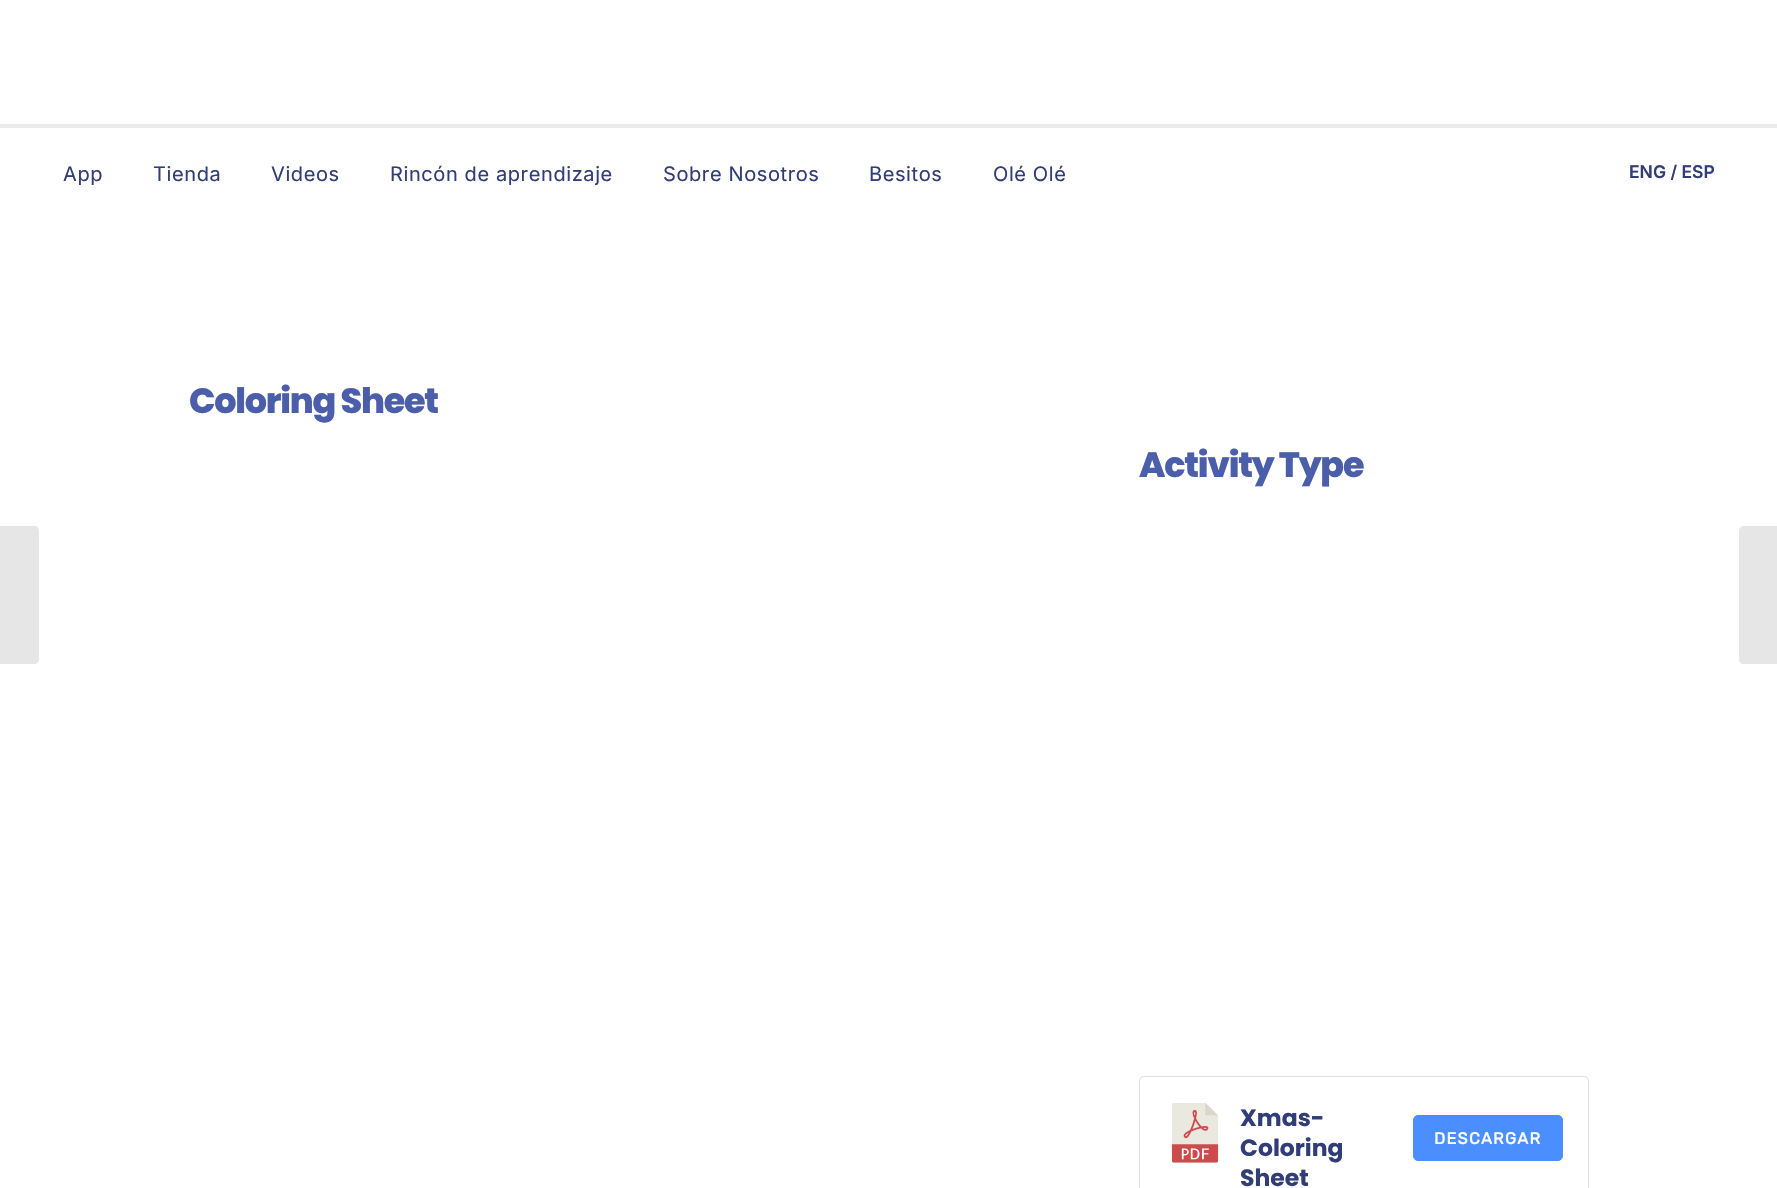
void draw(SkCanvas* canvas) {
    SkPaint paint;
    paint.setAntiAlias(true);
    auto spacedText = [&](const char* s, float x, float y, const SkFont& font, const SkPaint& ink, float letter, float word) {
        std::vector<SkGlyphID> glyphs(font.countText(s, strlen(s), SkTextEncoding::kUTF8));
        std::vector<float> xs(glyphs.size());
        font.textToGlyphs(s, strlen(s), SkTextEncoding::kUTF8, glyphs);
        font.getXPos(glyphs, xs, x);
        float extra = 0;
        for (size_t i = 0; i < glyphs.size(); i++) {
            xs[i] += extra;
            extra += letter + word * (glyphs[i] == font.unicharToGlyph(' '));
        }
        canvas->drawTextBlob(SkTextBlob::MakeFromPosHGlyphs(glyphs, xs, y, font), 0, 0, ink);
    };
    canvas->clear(0xFFFFFFFF);
    paint.setColor(0xFFEBEBEB);
    canvas->drawRect(SkRect::MakeXYWH(0, 124, 1777, 4), paint);
    SkFont font1(fontMgr->matchFamilyStyle("Inter", SkFontStyle::Normal()), 20);
    font1.setSubpixel(true);
    paint.setColor(0xFF313D76);
    spacedText("App", 63, 181, font1, paint, 0.6f, 0);
    spacedText("Tienda", 153, 181, font1, paint, 0.6f, 0);
    spacedText("Videos", 271, 181, font1, paint, 0.6f, 0);
    spacedText("Rincón de aprendizaje", 390, 181, font1, paint, 0.6f, 0);
    spacedText("Sobre Nosotros", 663, 181, font1, paint, 0.6f, 0);
    spacedText("Besitos", 869, 181, font1, paint, 0.6f, 0);
    spacedText("Olé Olé", 993, 181, font1, paint, 0.6f, 0);
    SkFont font2(fontMgr->matchFamilyStyle("Inter", SkFontStyle(600, SkFontStyle::kNormal_Width, SkFontStyle::kUpright_Slant)), 17.5f);
    font2.setSubpixel(true);
    canvas->drawString("ENG / ESP", 1629, 178, font2, paint);
    paint.setColor(0xFFE6E6E6);
    canvas->drawPath(SkPathBuilder().moveTo(0, 526).lineTo(34, 526).cubicTo(37, 526, 39, 528, 39, 531).lineTo(39, 659).cubicTo(39, 662, 37, 664, 34, 664).lineTo(0, 664).close().detach(), paint);
    SkFont font3(fontMgr->matchFamilyStyle("Poppins", SkFontStyle(800, SkFontStyle::kNormal_Width, SkFontStyle::kUpright_Slant)), 35);
    font3.setSubpixel(true);
    paint.setColor(0xFF4A5EA9);
    spacedText("Coloring Sheet", 189, 413, font3, paint, -1.25f, 0);
    spacedText("Activity Type", 1139, 477, font3, paint, -1.25f, 0);
    paint.setStyle(SkPaint::kStroke_Style);
    paint.setStrokeWidth(1);
    paint.setColor(0xFFDFDFDF);
    canvas->drawRoundRect(SkRect::MakeXYWH(1139.5f, 1076.5f, 449, 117), 4.5f, 4.5f, paint);
    canvas->drawImageRect(SkImages::DeferredFromEncodedData(SkData::MakeFromFileName("img1.png")), SkRect::MakeXYWH(1171, 1103, 48, 60), SkSamplingOptions());
    SkFont font4(fontMgr->matchFamilyStyle("Poppins", SkFontStyle::Bold()), 23.5f);
    font4.setSubpixel(true);
    paint.setStyle(SkPaint::kFill_Style);
    paint.setColor(0xFF313D76);
    canvas->drawString("Xmas-", 1240, 1126, font4, paint);
    canvas->drawString("Coloring", 1240, 1156, font4, paint);
    canvas->drawString("Sheet", 1240, 1186, font4, paint);
    paint.setColor(0xFF4A8EFF);
    canvas->drawRoundRect(SkRect::MakeXYWH(1413.5f, 1115.5f, 149, 45), 4.5f, 4.5f, paint);
    paint.setStyle(SkPaint::kStroke_Style);
    canvas->drawRoundRect(SkRect::MakeXYWH(1413.5f, 1115.5f, 149, 45), 4.5f, 4.5f, paint);
    SkFont font5(fontMgr->matchFamilyStyle("Rubik", SkFontStyle::Bold()), 16.25f);
    font5.setSubpixel(true);
    paint.setStyle(SkPaint::kFill_Style);
    paint.setColor(0xFFFFFFFF);
    spacedText("DESCARGAR", 1434, 1144, font5, paint, 1.25f, 0);
    paint.setColor(0xFFE6E6E6);
    canvas->drawPath(SkPathBuilder().moveTo(1744, 526).lineTo(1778, 526).lineTo(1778, 664).lineTo(1744, 664).cubicTo(1741, 664, 1739, 662, 1739, 659).lineTo(1739, 531).cubicTo(1739, 528, 1741, 526, 1744, 526).close().detach(), paint);
}
